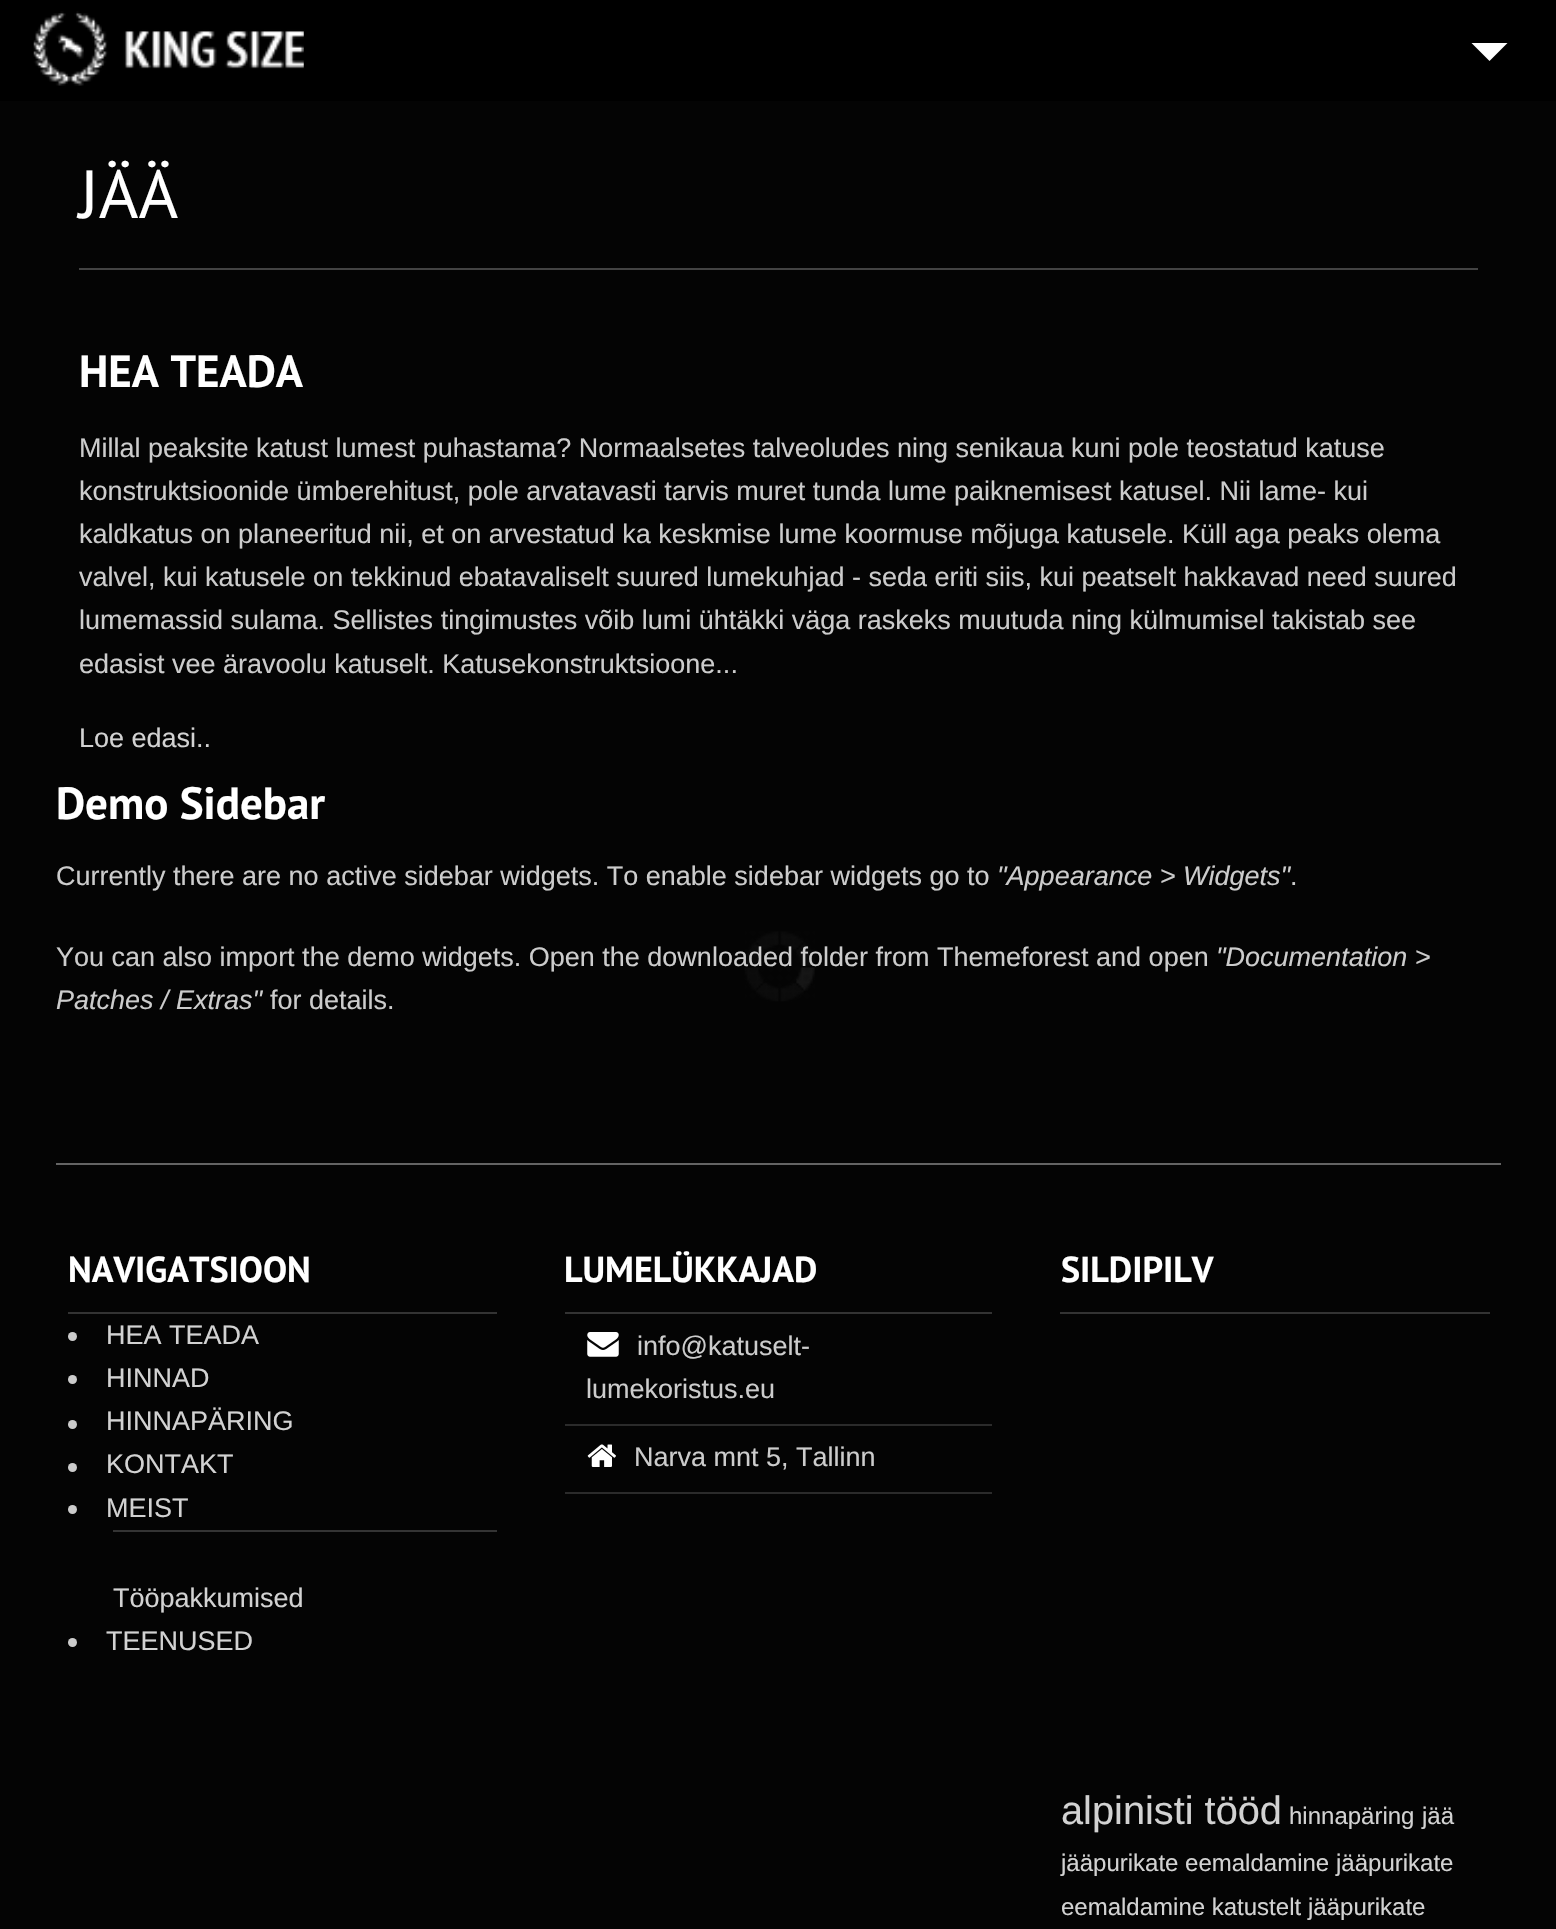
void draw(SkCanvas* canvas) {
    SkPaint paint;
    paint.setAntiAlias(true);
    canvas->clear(0xFF040404);
    paint.setColor(0xFF000000);
    canvas->drawRect(SkRect::MakeXYWH(0, 0, 1556, 101), paint);
    canvas->drawImageRect(SkImages::DeferredFromEncodedData(SkData::MakeFromFileName("img1.png")), SkRect::MakeXYWH(33, 11, 271, 75), SkSamplingOptions());
    paint.setColor(0xFFFFFFFF);
    canvas->drawPath(SkPathBuilder().moveTo(1471.5f, 43).lineTo(1507.5f, 43).lineTo(1489.5f, 61).close().detach(), paint);
    SkFont font1(fontMgr->matchFamilyStyle("PT Sans", SkFontStyle::Normal()), 68);
    font1.setSubpixel(true);
    canvas->drawString("JÄÄ", 79, 218, font1, paint);
    paint.setColor(0xFF434343);
    canvas->drawRect(SkRect::MakeXYWH(79, 268, 1399, 2), paint);
    SkFont font2(fontMgr->matchFamilyStyle("PT Sans", SkFontStyle::Bold()), 45);
    font2.setSubpixel(true);
    paint.setColor(0xFFFFFFFF);
    canvas->drawString("HEA TEADA", 79, 387, font2, paint);
    SkFont font3(fontMgr->matchFamilyStyle("Liberation Sans", SkFontStyle::Normal()), 27);
    font3.setSubpixel(true);
    paint.setColor(0xFFCCCCCC);
    canvas->drawString("Millal peaksite katust lumest puhastama? Normaalsetes talveoludes ning senikaua kuni pole teostatud katuse", 79, 457, font3, paint);
    canvas->drawString("konstruktsioonide ümberehitust, pole arvatavasti tarvis muret tunda lume paiknemisest katusel. Nii lame- kui", 79, 500, font3, paint);
    canvas->drawString("kaldkatus on planeeritud nii, et on arvestatud ka keskmise lume koormuse mõjuga katusele. Küll aga peaks olema", 79, 543, font3, paint);
    canvas->drawString("valvel, kui katusele on tekkinud ebatavaliselt suured lumekuhjad - seda eriti siis, kui peatselt hakkavad need suured", 79, 586, font3, paint);
    canvas->drawString("lumemassid sulama. Sellistes tingimustes võib lumi ühtäkki väga raskeks muutuda ning külmumisel takistab see", 79, 629, font3, paint);
    canvas->drawString("edasist vee äravoolu katuselt. Katusekonstruktsioone...", 79, 673, font3, paint);
    paint.setColor(0xFFD2D2D2);
    canvas->drawString("Loe edasi..", 79, 747, font3, paint);
    paint.setColor(0xFFFFFFFF);
    canvas->drawString("Demo Sidebar", 56, 819, font2, paint);
    paint.setColor(0xFFCCCCCC);
    canvas->drawString("Currently there are no active sidebar widgets. To enable sidebar widgets go to", 56, 885, font3, paint);
    SkFont font4(fontMgr->matchFamilyStyle("Liberation Sans", SkFontStyle::Italic()), 27);
    font4.setSubpixel(true);
    canvas->drawString("\"Appearance > Widgets\"", 997, 885, font4, paint);
    canvas->drawString(".", 1290, 885, font3, paint);
    canvas->drawImageRect(SkImages::DeferredFromEncodedData(SkData::MakeFromFileName("img4.png")), SkRect::MakeXYWH(744, 931, 71, 71), SkSamplingOptions());
    canvas->drawImageRect(SkImages::DeferredFromEncodedData(SkData::MakeFromFileName("img5.png")), SkRect::MakeXYWH(745, 931, 70, 70), SkSamplingOptions());
    canvas->drawString("You can also import the demo widgets. Open the downloaded folder from Themeforest and open", 56, 966, font3, paint);
    canvas->drawString("\"Documentation >", 1216, 966, font4, paint);
    canvas->drawString("Patches / Extras\"", 56, 1009, font4, paint);
    canvas->drawString("for details.", 270, 1009, font3, paint);
    paint.setColor(0xFF646464);
    canvas->drawRect(SkRect::MakeXYWH(56, 1163, 1445, 2), paint);
    paint.setColor(0xFF333333);
    canvas->drawRect(SkRect::MakeXYWH(68, 1312, 429, 2), paint);
    SkFont font5(fontMgr->matchFamilyStyle("PT Sans", SkFontStyle::Bold()), 36);
    font5.setSubpixel(true);
    paint.setColor(0xFFFFFFFF);
    canvas->drawString("NAVIGATSIOON", 68, 1282, font5, paint);
    paint.setColor(0xFFCCCCCC);
    canvas->drawCircle(72.5f, 1336.5f, 4.5f, paint);
    paint.setColor(0xFFD2D2D2);
    canvas->drawString("HEA TEADA", 106, 1344, font3, paint);
    paint.setColor(0xFFCCCCCC);
    canvas->drawCircle(72.5f, 1379.5f, 4.5f, paint);
    paint.setColor(0xFFD2D2D2);
    canvas->drawString("HINNAD", 106, 1387, font3, paint);
    paint.setColor(0xFFCCCCCC);
    canvas->drawCircle(72.5f, 1424.5f, 4.5f, paint);
    paint.setColor(0xFFD2D2D2);
    canvas->drawString("HINNAPÄRING", 106, 1430, font3, paint);
    paint.setColor(0xFFCCCCCC);
    canvas->drawCircle(72.5f, 1467.5f, 4.5f, paint);
    paint.setColor(0xFFD2D2D2);
    canvas->drawString("KONTAKT", 106, 1473, font3, paint);
    paint.setColor(0xFFCCCCCC);
    canvas->drawCircle(72.5f, 1509.5f, 4.5f, paint);
    paint.setColor(0xFFD2D2D2);
    canvas->drawString("MEIST", 106, 1517, font3, paint);
    paint.setColor(0xFF343434);
    canvas->drawRect(SkRect::MakeXYWH(113, 1530, 384, 2), paint);
    paint.setColor(0xFFD2D2D2);
    canvas->drawString("Tööpakkumised", 113, 1607, font3, paint);
    paint.setColor(0xFFCCCCCC);
    canvas->drawCircle(72.5f, 1642.5f, 4.5f, paint);
    paint.setColor(0xFFD2D2D2);
    canvas->drawString("TEENUSED", 106, 1650, font3, paint);
    paint.setColor(0xFF333333);
    canvas->drawRect(SkRect::MakeXYWH(565, 1312, 427, 2), paint);
    paint.setColor(0xFFFFFFFF);
    canvas->drawString("LUMELÜKKAJAD", 564, 1282, font5, paint);
    paint.setColor(0xFF2B2B2B);
    canvas->drawRect(SkRect::MakeXYWH(565, 1424, 427, 2), paint);
    canvas->drawImageRect(SkImages::DeferredFromEncodedData(SkData::MakeFromFileName("img2.png")), SkRect::MakeXYWH(587, 1332, 32, 25), SkSamplingOptions());
    paint.setColor(0xFFCCCCCC);
    canvas->drawString("info@katuselt-", 637, 1355, font3, paint);
    canvas->drawString("lumekoristus.eu", 586, 1398, font3, paint);
    paint.setColor(0xFF2B2B2B);
    canvas->drawRect(SkRect::MakeXYWH(565, 1492, 427, 2), paint);
    canvas->drawImageRect(SkImages::DeferredFromEncodedData(SkData::MakeFromFileName("img3.png")), SkRect::MakeXYWH(587, 1444, 29, 23), SkSamplingOptions());
    paint.setColor(0xFFCCCCCC);
    canvas->drawString("Narva mnt 5, Tallinn", 634, 1466, font3, paint);
    paint.setColor(0xFF333333);
    canvas->drawRect(SkRect::MakeXYWH(1060, 1312, 430, 2), paint);
    paint.setColor(0xFFFFFFFF);
    canvas->drawString("SILDIPILV", 1061, 1282, font5, paint);
    SkFont font6(fontMgr->matchFamilyStyle("Liberation Sans", SkFontStyle::Normal()), 39.75f);
    font6.setSubpixel(true);
    paint.setColor(0xFFD2D2D2);
    canvas->drawString("alpinisti tööd", 1061, 1824, font6, paint);
    SkFont font7(fontMgr->matchFamilyStyle("Liberation Sans", SkFontStyle::Normal()), 24);
    font7.setSubpixel(true);
    canvas->drawString("hinnapäring", 1289, 1824, font7, paint);
    canvas->drawString("jää", 1422, 1824, font7, paint);
    canvas->drawString("jääpurikate eemaldamine", 1061, 1871, font7, paint);
    canvas->drawString("jääpurikate", 1336, 1871, font7, paint);
    canvas->drawString("eemaldamine katustelt", 1061, 1915, font7, paint);
    canvas->drawString("jääpurikate", 1308, 1915, font7, paint);
}
